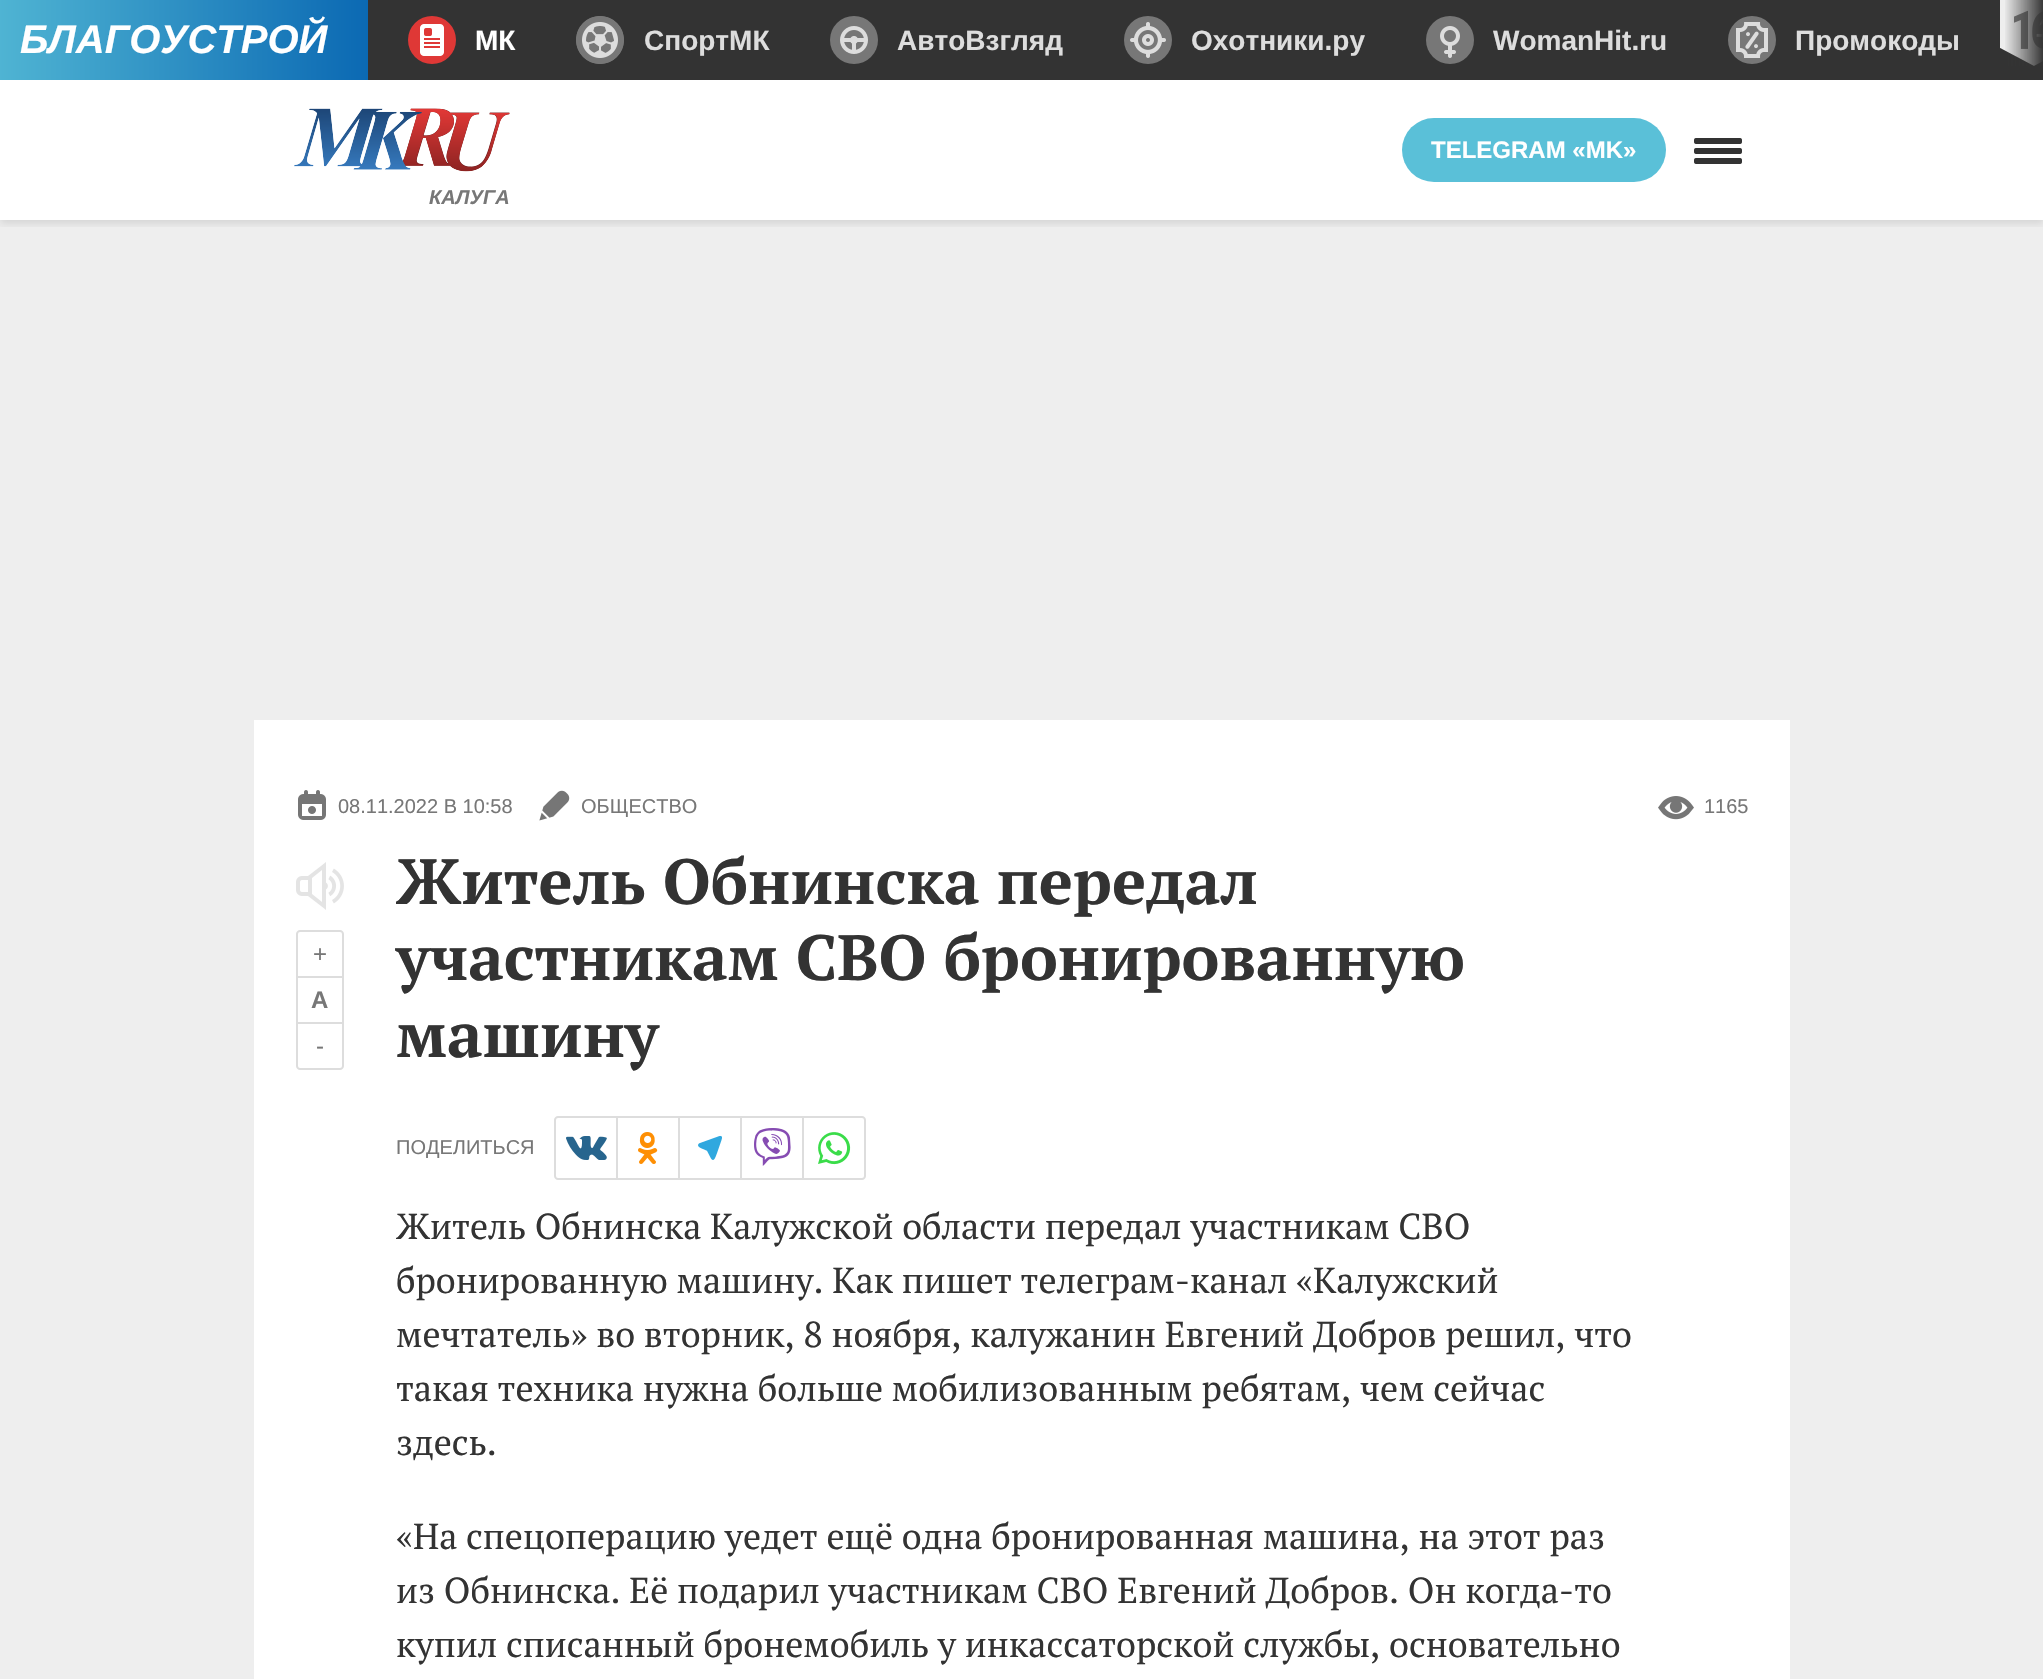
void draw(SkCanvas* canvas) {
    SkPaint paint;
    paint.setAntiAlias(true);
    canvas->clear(0xFFEEEEEE);
    paint.setColor(0xFF333333);
    canvas->drawRect(SkRect::MakeXYWH(368, 0, 1675, 80), paint);
    {
        const SkColor colors[] = {0xFF5AC0D8, 0xFF0B69B3};
        const float stops[] = {0, 1};
        const SkPoint ends[] = {{-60, 40}, {368, 40}};
        paint.setShader(SkGradientShader::MakeLinear(ends, colors, stops, 2, SkTileMode::kClamp));
        paint.setAlpha(255);
    }
    canvas->drawRect(SkRect::MakeXYWH(0, 0, 368, 80), paint);
    SkFont font1(fontMgr->matchFamilyStyle("Liberation Sans", SkFontStyle::BoldItalic()), 40);
    font1.setSubpixel(true);
    paint.setShader(nullptr);
    paint.setColor(0xFFFFFFFF);
    canvas->drawString("БЛАГОУСТРОЙ", 20, 53, font1, paint);
    paint.setColor(0xFFDF3836);
    canvas->drawCircle(432, 40, 24, paint);
    canvas->drawImageRect(SkImages::DeferredFromEncodedData(SkData::MakeFromFileName("img1.png")), SkRect::MakeXYWH(420, 24, 24, 32), SkSamplingOptions());
    SkFont font2(fontMgr->matchFamilyStyle("Liberation Sans", SkFontStyle::Bold()), 28);
    font2.setSubpixel(true);
    paint.setColor(0xFFFFFFFF);
    canvas->drawString("МК", 475, 50, font2, paint);
    paint.setColor(0xFF777777);
    canvas->drawCircle(600, 40, 24, paint);
    canvas->drawImageRect(SkImages::DeferredFromEncodedData(SkData::MakeFromFileName("img2.png")), SkRect::MakeXYWH(576, 16, 48, 48), SkSamplingOptions());
    paint.setColor(0xFFDDDDDD);
    canvas->drawString("СпортМК", 644, 50, font2, paint);
    paint.setColor(0xFF777777);
    canvas->drawCircle(854, 40, 24, paint);
    canvas->drawImageRect(SkImages::DeferredFromEncodedData(SkData::MakeFromFileName("img3.png")), SkRect::MakeXYWH(840, 26, 28, 28), SkSamplingOptions());
    paint.setColor(0xFFDDDDDD);
    canvas->drawString("АвтоВзгляд", 897, 50, font2, paint);
    paint.setColor(0xFF777777);
    canvas->drawCircle(1148, 40, 24, paint);
    canvas->drawImageRect(SkImages::DeferredFromEncodedData(SkData::MakeFromFileName("img4.png")), SkRect::MakeXYWH(1130, 22, 36, 36), SkSamplingOptions());
    paint.setColor(0xFFDDDDDD);
    canvas->drawString("Охотники.ру", 1191, 50, font2, paint);
    paint.setColor(0xFF777777);
    canvas->drawCircle(1450, 40, 24, paint);
    canvas->drawImageRect(SkImages::DeferredFromEncodedData(SkData::MakeFromFileName("img5.png")), SkRect::MakeXYWH(1440, 26, 20, 32), SkSamplingOptions());
    paint.setColor(0xFFDDDDDD);
    canvas->drawString("WomanHit.ru", 1493, 50, font2, paint);
    paint.setColor(0xFF777777);
    canvas->drawCircle(1752, 40, 24, paint);
    canvas->drawImageRect(SkImages::DeferredFromEncodedData(SkData::MakeFromFileName("img6.png")), SkRect::MakeXYWH(1736, 22, 32, 36), SkSamplingOptions());
    paint.setColor(0xFFDDDDDD);
    canvas->drawString("Промокоды", 1795, 50, font2, paint);
    canvas->drawImageRect(SkImages::DeferredFromEncodedData(SkData::MakeFromFileName("img7.png")), SkRect::MakeXYWH(2000, 0, 43, 66), SkSamplingOptions());
    {
        const SkColor colors[] = {0x00333333, 0xFF333333};
        const float stops[] = {0, 1};
        const SkPoint ends[] = {{2004, 40}, {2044, 40}};
        paint.setShader(SkGradientShader::MakeLinear(ends, colors, stops, 2, SkTileMode::kClamp));
        paint.setAlpha(255);
    }
    canvas->drawRect(SkRect::MakeXYWH(2005, 0, 38, 66), paint);
    paint.setShader(nullptr);
    paint.setColor(0xFFFFFFFF);
    canvas->drawRect(SkRect::MakeXYWH(0, 80, 2043, 140), paint);
    canvas->save();
    canvas->clipRect(SkRect::MakeXYWH(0, 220, 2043, 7));
    paint.setColor(0x1A000000);
    paint.setMaskFilter(SkMaskFilter::MakeBlur(kNormal_SkBlurStyle, 4));
    canvas->drawRect(SkRect::MakeXYWH(0, 84, 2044, 140), paint);
    paint.setMaskFilter(nullptr);
    canvas->restore();
    paint.setColor(0xFF5AC0D8);
    canvas->drawRoundRect(SkRect::MakeXYWH(1402, 118, 264, 64), 32, 32, paint);
    SkFont font3(fontMgr->matchFamilyStyle("Liberation Sans", SkFontStyle::Bold()), 24);
    font3.setSubpixel(true);
    paint.setColor(0xFFFFFFFF);
    canvas->drawString("TELEGRAM «MK»", 1431, 158, font3, paint);
    canvas->drawImageRect(SkImages::DeferredFromEncodedData(SkData::MakeFromFileName("img8.png")), SkRect::MakeXYWH(1694, 138, 48, 26), SkSamplingOptions());
    canvas->drawImageRect(SkImages::DeferredFromEncodedData(SkData::MakeFromFileName("img9.png")), SkRect::MakeXYWH(294, 108, 216, 64), SkSamplingOptions());
    SkFont font4(fontMgr->matchFamilyStyle("Liberation Sans", SkFontStyle::BoldItalic()), 20);
    font4.setSubpixel(true);
    paint.setColor(0xFF777777);
    canvas->drawString("КАЛУГА", 429, 204, font4, paint);
    paint.setColor(0xFFFFFFFF);
    canvas->drawRect(SkRect::MakeXYWH(254, 720, 1536, 959), paint);
    canvas->drawImageRect(SkImages::DeferredFromEncodedData(SkData::MakeFromFileName("img10.png")), SkRect::MakeXYWH(298, 790, 28, 30), SkSamplingOptions());
    SkFont font5(fontMgr->matchFamilyStyle("Liberation Sans", SkFontStyle::Normal()), 20);
    font5.setSubpixel(true);
    paint.setColor(0xFF777777);
    canvas->drawString("08.11.2022 В 10:58", 338, 813, font5, paint);
    canvas->drawImageRect(SkImages::DeferredFromEncodedData(SkData::MakeFromFileName("img11.png")), SkRect::MakeXYWH(539, 790, 31, 31), SkSamplingOptions());
    canvas->drawString("ОБЩЕСТВО", 581, 813, font5, paint);
    canvas->drawImageRect(SkImages::DeferredFromEncodedData(SkData::MakeFromFileName("img12.png")), SkRect::MakeXYWH(1658, 796, 36, 24), SkSamplingOptions());
    canvas->drawString("1165", 1704, 813, font5, paint);
    canvas->drawImageRect(SkImages::DeferredFromEncodedData(SkData::MakeFromFileName("img13.png")), SkRect::MakeXYWH(296, 862, 48, 48), SkSamplingOptions());
    paint.setStyle(SkPaint::kStroke_Style);
    paint.setStrokeWidth(2);
    paint.setColor(0xFFDDDDDD);
    canvas->drawPath(SkPathBuilder().moveTo(300, 931).lineTo(340, 931).cubicTo(341.5f, 931, 343, 932.5f, 343, 934).lineTo(343, 977).lineTo(297, 977).lineTo(297, 934).cubicTo(297, 932.5f, 298.5f, 931, 300, 931).close().detach(), paint);
    SkFont font6(fontMgr->matchFamilyStyle("Liberation Sans", SkFontStyle::Normal()), 24);
    font6.setSubpixel(true);
    paint.setStyle(SkPaint::kFill_Style);
    paint.setColor(0xFF777777);
    canvas->drawString("+", 313, 962, font6, paint);
    paint.setStyle(SkPaint::kStroke_Style);
    paint.setColor(0xFFDDDDDD);
    canvas->drawRect(SkRect::MakeXYWH(297, 977, 46, 46), paint);
    paint.setStyle(SkPaint::kFill_Style);
    paint.setColor(0xFF777777);
    canvas->drawString("A", 311, 1008, font3, paint);
    paint.setStyle(SkPaint::kStroke_Style);
    paint.setColor(0xFFDDDDDD);
    canvas->drawPath(SkPathBuilder().moveTo(297, 1023).lineTo(343, 1023).lineTo(343, 1066).cubicTo(343, 1067.5f, 341.5f, 1069, 340, 1069).lineTo(300, 1069).cubicTo(298.5f, 1069, 297, 1067.5f, 297, 1066).close().detach(), paint);
    paint.setStyle(SkPaint::kFill_Style);
    paint.setColor(0xFF777777);
    canvas->drawString("-", 316, 1054, font6, paint);
    SkFont font7(fontMgr->matchFamilyStyle("PT Serif", SkFontStyle::Bold()), 63.75f);
    font7.setSubpixel(true);
    paint.setColor(0xFF333333);
    canvas->drawString("Житель Обнинска передал", 396, 904, font7, paint);
    canvas->drawString("участникам СВО бронированную", 396, 980, font7, paint);
    canvas->drawString("машину", 396, 1057, font7, paint);
    paint.setColor(0xFF777777);
    canvas->drawString("ПОДЕЛИТЬСЯ", 396, 1154, font5, paint);
    paint.setStyle(SkPaint::kStroke_Style);
    paint.setColor(0xFFDDDDDD);
    canvas->drawPath(SkPathBuilder().moveTo(558, 1117).lineTo(617, 1117).lineTo(617, 1179).lineTo(558, 1179).cubicTo(556.5f, 1179, 555, 1177.5f, 555, 1176).lineTo(555, 1120).cubicTo(555, 1118.5f, 556.5f, 1117, 558, 1117).close().detach(), paint);
    canvas->drawImageRect(SkImages::DeferredFromEncodedData(SkData::MakeFromFileName("img14.png")), SkRect::MakeXYWH(566, 1136, 41, 24), SkSamplingOptions());
    canvas->drawRect(SkRect::MakeXYWH(617, 1117, 62, 62), paint);
    canvas->drawImageRect(SkImages::DeferredFromEncodedData(SkData::MakeFromFileName("img15.png")), SkRect::MakeXYWH(638, 1132, 20, 32), SkSamplingOptions());
    canvas->drawRect(SkRect::MakeXYWH(679, 1117, 62, 62), paint);
    canvas->drawImageRect(SkImages::DeferredFromEncodedData(SkData::MakeFromFileName("img16.png")), SkRect::MakeXYWH(698, 1135, 24, 25), SkSamplingOptions());
    canvas->drawRect(SkRect::MakeXYWH(741, 1117, 62, 62), paint);
    canvas->drawImageRect(SkImages::DeferredFromEncodedData(SkData::MakeFromFileName("img17.png")), SkRect::MakeXYWH(754, 1128, 37, 38), SkSamplingOptions());
    canvas->drawPath(SkPathBuilder().moveTo(803, 1117).lineTo(862, 1117).cubicTo(863.5f, 1117, 865, 1118.5f, 865, 1120).lineTo(865, 1176).cubicTo(865, 1177.5f, 863.5f, 1179, 862, 1179).lineTo(803, 1179).close().detach(), paint);
    canvas->drawImageRect(SkImages::DeferredFromEncodedData(SkData::MakeFromFileName("img18.png")), SkRect::MakeXYWH(818, 1132, 33, 33), SkSamplingOptions());
    SkFont font8(fontMgr->matchFamilyStyle("PT Serif", SkFontStyle::Normal()), 36);
    font8.setSubpixel(true);
    paint.setStyle(SkPaint::kFill_Style);
    paint.setColor(0xFF333333);
    canvas->drawString("Житель Обнинска Калужской области передал участникам СВО", 396, 1239, font8, paint);
    canvas->drawString("бронированную машину. Как пишет телеграм-канал «Калужский", 396, 1293, font8, paint);
    canvas->drawString("мечтатель» во вторник, 8 ноября, калужанин Евгений Добров решил, что", 396, 1347, font8, paint);
    canvas->drawString("такая техника нужна больше мобилизованным ребятам, чем сейчас", 396, 1401, font8, paint);
    canvas->drawString("здесь.", 396, 1455, font8, paint);
    canvas->drawString("«На спецоперацию уедет ещё одна бронированная машина, на этот раз", 396, 1549, font8, paint);
    canvas->drawString("из Обнинска. Её подарил участникам СВО Евгений Добров. Он когда-то", 396, 1603, font8, paint);
    canvas->drawString("купил списанный бронемобиль у инкассаторской службы, основательно", 396, 1657, font8, paint);
}
